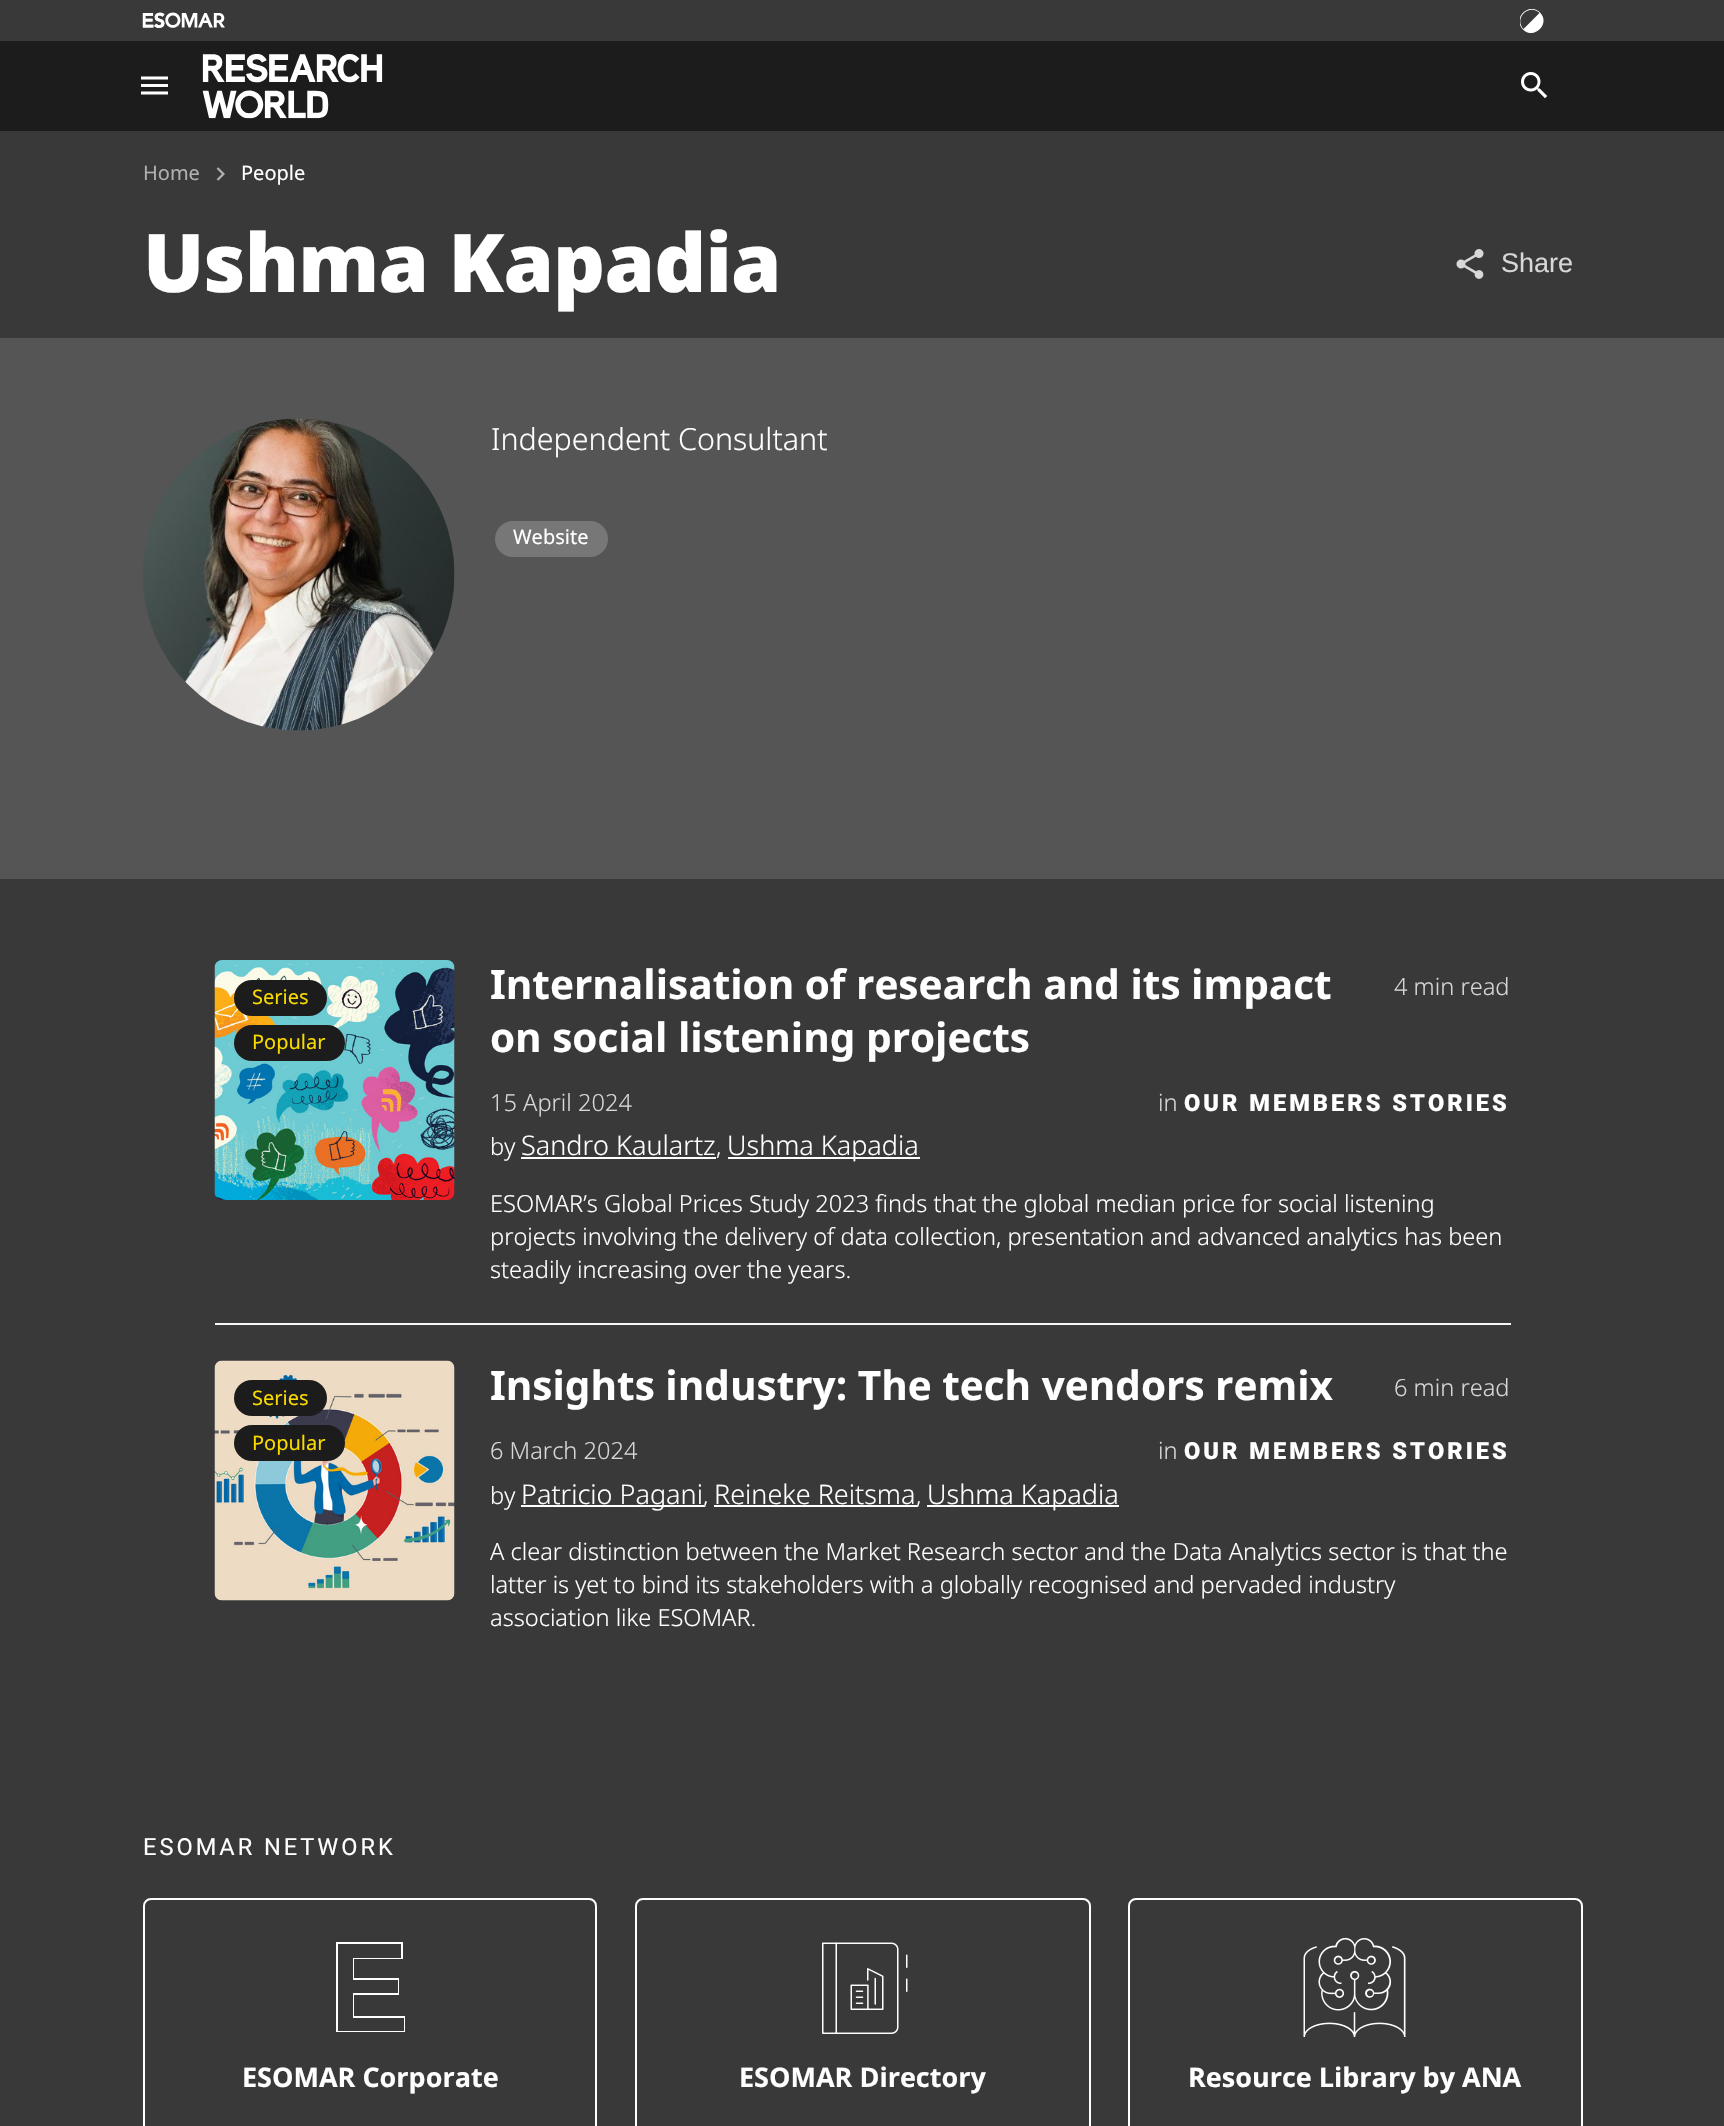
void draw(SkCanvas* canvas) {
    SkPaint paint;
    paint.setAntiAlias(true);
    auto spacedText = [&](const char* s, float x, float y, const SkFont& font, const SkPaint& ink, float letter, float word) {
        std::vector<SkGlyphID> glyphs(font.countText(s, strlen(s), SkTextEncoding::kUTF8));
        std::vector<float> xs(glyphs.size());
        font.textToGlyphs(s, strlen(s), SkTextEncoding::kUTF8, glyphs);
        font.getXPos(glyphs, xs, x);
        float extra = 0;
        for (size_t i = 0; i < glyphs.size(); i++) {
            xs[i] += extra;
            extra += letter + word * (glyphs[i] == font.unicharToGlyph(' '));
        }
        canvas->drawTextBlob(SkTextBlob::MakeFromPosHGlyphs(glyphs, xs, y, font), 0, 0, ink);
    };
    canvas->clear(0xFF393939);
    canvas->drawImageRect(SkImages::DeferredFromEncodedData(SkData::MakeFromFileName("img1.png")), SkRect::MakeXYWH(142, 12, 83, 16), SkSamplingOptions());
    canvas->save();
    canvas->clipRect(SkRect::MakeXYWH(1520, 9, 24, 24));
    paint.setColor(0xFFFFFFFF);
    canvas->drawPath(SkPathBuilder().moveTo(1540, 12.5f).cubicTo(1551, 23.5f, 1534, 40.5f, 1523, 29.5f).cubicTo(1512, 18.5f, 1528.5f, 1.5f, 1540, 12.5f).close().moveTo(1523.5f, 29).lineTo(1539.5f, 13).cubicTo(1529, 3, 1513.5f, 18.5f, 1523.5f, 29).close().detach(), paint);
    canvas->restore();
    paint.setColor(0xFF1C1C1C);
    canvas->drawRect(SkRect::MakeXYWH(0, 41, 1724, 90), paint);
    canvas->drawImageRect(SkImages::DeferredFromEncodedData(SkData::MakeFromFileName("img2.png")), SkRect::MakeXYWH(141, 76, 27, 19), SkSamplingOptions());
    canvas->drawImageRect(SkImages::DeferredFromEncodedData(SkData::MakeFromFileName("img3.png")), SkRect::MakeXYWH(202, 54, 181, 65), SkSamplingOptions());
    canvas->drawImageRect(SkImages::DeferredFromEncodedData(SkData::MakeFromFileName("img4.png")), SkRect::MakeXYWH(1521, 72, 27, 27), SkSamplingOptions());
    SkFont font1(fontMgr->matchFamilyStyle("Noto Sans", SkFontStyle::Normal()), 20);
    font1.setSubpixel(true);
    paint.setColor(0xFFB0B0B0);
    canvas->drawString("Home", 143, 180, font1, paint);
    canvas->drawImageRect(SkImages::DeferredFromEncodedData(SkData::MakeFromFileName("img5.png")), SkRect::MakeXYWH(216, 167, 9, 14), SkSamplingOptions());
    paint.setColor(0xFFFFFFFF);
    canvas->drawString("People", 241, 180, font1, paint);
    SkFont font2(fontMgr->matchFamilyStyle("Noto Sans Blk", SkFontStyle(900, SkFontStyle::kNormal_Width, SkFontStyle::kUpright_Slant)), 81);
    font2.setSubpixel(true);
    spacedText("Ushma Kapadia", 143, 292, font2, paint, -0.75f, 0);
    canvas->drawImageRect(SkImages::DeferredFromEncodedData(SkData::MakeFromFileName("img6.png")), SkRect::MakeXYWH(1456, 249, 28, 30), SkSamplingOptions());
    SkFont font3(fontMgr->matchFamilyStyle("Liberation Sans", SkFontStyle::Normal()), 27);
    font3.setSubpixel(true);
    paint.setColor(0xFFD7D7D7);
    canvas->drawString("Share", 1501, 272, font3, paint);
    paint.setColor(0xFF555555);
    canvas->drawRect(SkRect::MakeXYWH(0, 338, 1724, 541), paint);
    canvas->drawImageRect(SkImages::DeferredFromEncodedData(SkData::MakeFromFileName("img7.png")), SkRect::MakeXYWH(143, 418, 312, 313), SkSamplingOptions());
    SkFont font4(fontMgr->matchFamilyStyle("Noto Sans", SkFontStyle(300, SkFontStyle::kNormal_Width, SkFontStyle::kUpright_Slant)), 30.4f);
    font4.setSubpixel(true);
    paint.setColor(0xFFFFFFFF);
    canvas->drawString("Independent Consultant", 491, 450, font4, paint);
    paint.setColor(0xFF777777);
    canvas->drawRoundRect(SkRect::MakeXYWH(495, 521, 113, 36), 18, 18, paint);
    paint.setColor(0xFFFFFFFF);
    canvas->drawString("Website", 513, 544, font1, paint);
    canvas->drawImageRect(SkImages::DeferredFromEncodedData(SkData::MakeFromFileName("img8.png")), SkRect::MakeXYWH(214, 960, 241, 240), SkSamplingOptions());
    paint.setColor(0xFF1C1C1C);
    canvas->drawRoundRect(SkRect::MakeXYWH(234, 980, 93, 36), 18, 18, paint);
    paint.setColor(0xFFF8D900);
    canvas->drawString("Series", 252, 1004, font1, paint);
    paint.setColor(0xFF1C1C1C);
    canvas->drawRoundRect(SkRect::MakeXYWH(234, 1025, 111, 36), 18, 18, paint);
    paint.setColor(0xFFF8D900);
    canvas->drawString("Popular", 252, 1049, font1, paint);
    SkFont font5(fontMgr->matchFamilyStyle("Noto Sans", SkFontStyle::Bold()), 40.5f);
    font5.setSubpixel(true);
    paint.setColor(0xFFFFFFFF);
    canvas->drawString("Internalisation of research and its impact", 490, 999, font5, paint);
    canvas->drawString("on social listening projects", 490, 1052, font5, paint);
    SkFont font6(fontMgr->matchFamilyStyle("Noto Sans", SkFontStyle(300, SkFontStyle::kNormal_Width, SkFontStyle::kUpright_Slant)), 23.6f);
    font6.setSubpixel(true);
    paint.setColor(0xFFD7D7D7);
    canvas->drawString("4 min read", 1394, 995, font6, paint);
    canvas->drawString("15 April 2024", 490, 1111, font6, paint);
    canvas->drawString("in", 1158, 1111, font6, paint);
    SkFont font7(fontMgr->matchFamilyStyle("Roboto", SkFontStyle(900, SkFontStyle::kNormal_Width, SkFontStyle::kUpright_Slant)), 23.6f);
    font7.setSubpixel(true);
    paint.setColor(0xFFFFFFFF);
    spacedText("OUR MEMBERS STORIES", 1184, 1111, font7, paint, 3, 0);
    canvas->drawString("by", 490, 1155, font6, paint);
    SkFont font8(fontMgr->matchFamilyStyle("Noto Sans", SkFontStyle(300, SkFontStyle::kNormal_Width, SkFontStyle::kUpright_Slant)), 27);
    font8.setSubpixel(true);
    canvas->drawString("Sandro Kaulartz", 521, 1155, font8, paint);
    canvas->drawRect(SkRect::MakeXYWH(521, 1157, 195, 2), paint);
    canvas->drawString(",", 716, 1155, font6, paint);
    canvas->drawRect(SkRect::MakeXYWH(728, 1157, 192, 2), paint);
    canvas->drawString("Ushma Kapadia", 727, 1155, font8, paint);
    canvas->drawString("ESOMAR’s Global Prices Study 2023 finds that the global median price for social listening", 490, 1212, font6, paint);
    canvas->drawString("projects involving the delivery of data collection, presentation and advanced analytics has been", 490, 1245, font6, paint);
    canvas->drawString("steadily increasing over the years.", 490, 1278, font6, paint);
    paint.setColor(0xFFF8F8F8);
    canvas->drawRect(SkRect::MakeXYWH(215, 1323, 1296, 2), paint);
    canvas->drawImageRect(SkImages::DeferredFromEncodedData(SkData::MakeFromFileName("img9.png")), SkRect::MakeXYWH(214, 1360, 241, 241), SkSamplingOptions());
    paint.setColor(0xFF1C1C1C);
    canvas->drawRoundRect(SkRect::MakeXYWH(234, 1380, 93, 36), 18, 18, paint);
    paint.setColor(0xFFF8D900);
    canvas->drawString("Series", 252, 1405, font1, paint);
    paint.setColor(0xFF1C1C1C);
    canvas->drawRoundRect(SkRect::MakeXYWH(234, 1425, 111, 36), 18, 18, paint);
    paint.setColor(0xFFF8D900);
    canvas->drawString("Popular", 252, 1450, font1, paint);
    paint.setColor(0xFFFFFFFF);
    canvas->drawString("Insights industry: The tech vendors remix", 490, 1400, font5, paint);
    paint.setColor(0xFFD7D7D7);
    canvas->drawString("6 min read", 1394, 1396, font6, paint);
    canvas->drawString("6 March 2024", 490, 1459, font6, paint);
    canvas->drawString("in", 1158, 1459, font6, paint);
    paint.setColor(0xFFFFFFFF);
    spacedText("OUR MEMBERS STORIES", 1184, 1459, font7, paint, 3, 0);
    canvas->drawString("by", 490, 1504, font6, paint);
    canvas->drawRect(SkRect::MakeXYWH(521, 1505, 183, 2), paint);
    canvas->drawString("Patricio Pagani", 521, 1504, font8, paint);
    canvas->drawString(",", 703, 1504, font6, paint);
    canvas->drawString("Reineke Reitsma", 714, 1504, font8, paint);
    canvas->drawRect(SkRect::MakeXYWH(714, 1505, 203, 2), paint);
    canvas->drawString(",", 916, 1504, font6, paint);
    canvas->drawRect(SkRect::MakeXYWH(927, 1505, 192, 2), paint);
    canvas->drawString("Ushma Kapadia", 927, 1504, font8, paint);
    canvas->drawString("A clear distinction between the Market Research sector and the Data Analytics sector is that the", 490, 1560, font6, paint);
    canvas->drawString("latter is yet to bind its stakeholders with a globally recognised and pervaded industry", 490, 1593, font6, paint);
    canvas->drawString("association like ESOMAR.", 490, 1626, font6, paint);
    SkFont font9(fontMgr->matchFamilyStyle("Roboto", SkFontStyle::Normal()), 23.6f);
    font9.setSubpixel(true);
    spacedText("ESOMAR NETWORK", 143, 1855, font9, paint, 3, 0);
    paint.setStyle(SkPaint::kStroke_Style);
    paint.setStrokeWidth(2);
    canvas->drawRoundRect(SkRect::MakeXYWH(144, 1899, 452, 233), 7, 7, paint);
    paint.setStyle(SkPaint::kFill_Style);
    canvas->drawPath(SkPathBuilder().moveTo(405, 2032).lineTo(336, 2032).lineTo(336, 1942).lineTo(403, 1942).lineTo(403, 1959).lineTo(354, 1959).lineTo(354, 1978).lineTo(399, 1978).lineTo(399, 1995).lineTo(354, 1995).lineTo(354, 2016).lineTo(405, 2016).close().moveTo(338, 2031).lineTo(404, 2031).lineTo(404, 2018).lineTo(353, 2018).lineTo(353, 1993).lineTo(398, 1993).lineTo(398, 1980).lineTo(353, 1980).lineTo(353, 1958).lineTo(401, 1958).lineTo(401, 1944).lineTo(338, 1944).close().detach(), paint);
    SkFont font10(fontMgr->matchFamilyStyle("Noto Sans", SkFontStyle::Bold()), 27);
    font10.setSubpixel(true);
    canvas->drawString("ESOMAR Corporate", 242, 2087, font10, paint);
    paint.setStyle(SkPaint::kStroke_Style);
    canvas->drawRoundRect(SkRect::MakeXYWH(636, 1899, 454, 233), 7, 7, paint);
    canvas->drawImageRect(SkImages::DeferredFromEncodedData(SkData::MakeFromFileName("img10.png")), SkRect::MakeXYWH(822, 1942, 86, 92), SkSamplingOptions());
    paint.setStyle(SkPaint::kFill_Style);
    canvas->drawString("ESOMAR Directory", 739, 2087, font10, paint);
    paint.setStyle(SkPaint::kStroke_Style);
    canvas->drawRoundRect(SkRect::MakeXYWH(1129, 1899, 453, 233), 7, 7, paint);
    canvas->drawImageRect(SkImages::DeferredFromEncodedData(SkData::MakeFromFileName("img11.png")), SkRect::MakeXYWH(1303, 1937, 103, 100), SkSamplingOptions());
    paint.setStyle(SkPaint::kFill_Style);
    canvas->drawString("Resource Library by ANA", 1188, 2087, font10, paint);
}
